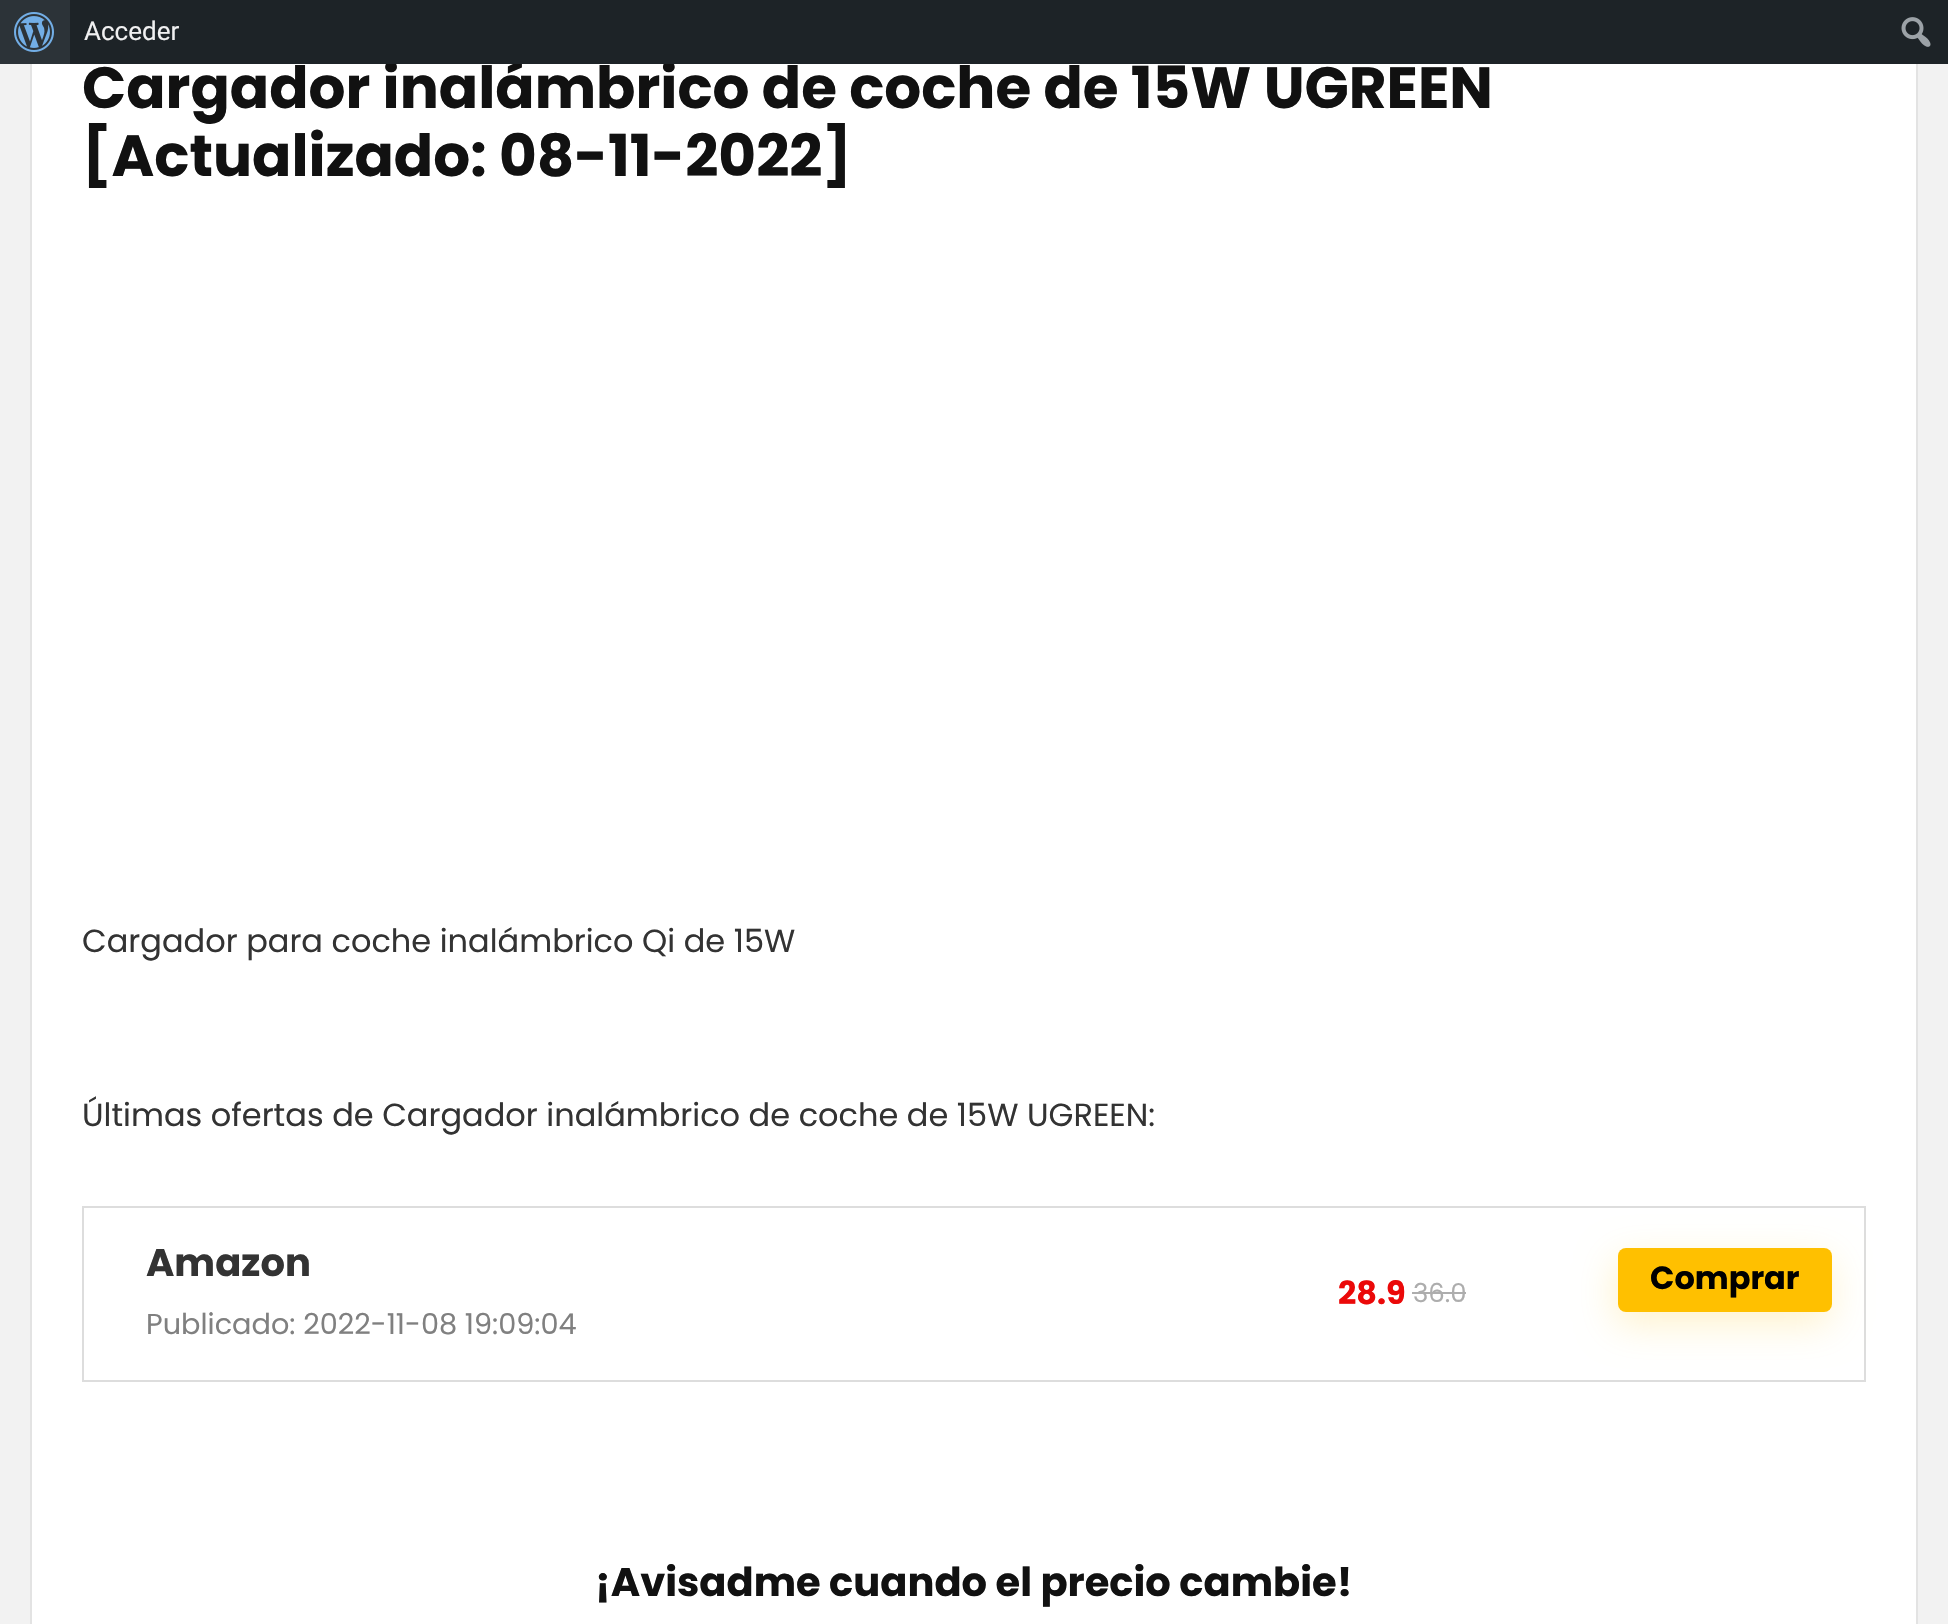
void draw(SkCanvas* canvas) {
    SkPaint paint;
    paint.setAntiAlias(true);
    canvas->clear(0xFFF2F2F2);
    paint.setColor(0xFFFFFFFF);
    canvas->drawRect(SkRect::MakeXYWH(32, 64, 1884, 1560), paint);
    paint.setStyle(SkPaint::kStroke_Style);
    paint.setStrokeWidth(2);
    paint.setColor(0xFFE3E3E3);
    canvas->drawRect(SkRect::MakeXYWH(31, -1, 1886, 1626), paint);
    SkFont font1(fontMgr->matchFamilyStyle("Poppins", SkFontStyle::Bold()), 58);
    font1.setSubpixel(true);
    paint.setStyle(SkPaint::kFill_Style);
    paint.setColor(0xFF111111);
    canvas->drawString("Cargador inalámbrico de coche de 15W UGREEN", 82, 108, font1, paint);
    paint.setColor(0xFF1D2327);
    canvas->drawRect(SkRect::MakeXYWH(70, 0, 1878, 64), paint);
    paint.setColor(0xFF2C3338);
    canvas->drawRect(SkRect::MakeXYWH(0, 0, 70, 64), paint);
    canvas->drawImageRect(SkImages::DeferredFromEncodedData(SkData::MakeFromFileName("img1.png")), SkRect::MakeXYWH(14, 12, 40, 40), SkSamplingOptions());
    SkFont font2(fontMgr->matchFamilyStyle("Roboto", SkFontStyle::Normal()), 26);
    font2.setSubpixel(true);
    paint.setColor(0xFFF0F0F1);
    canvas->drawString("Acceder", 84, 40, font2, paint);
    canvas->drawImageRect(SkImages::DeferredFromEncodedData(SkData::MakeFromFileName("img2.png")), SkRect::MakeXYWH(1901, 17, 30, 30), SkSamplingOptions());
    paint.setColor(0xFF111111);
    canvas->drawString("[Actualizado: 08-11-2022]", 82, 176, font1, paint);
    SkFont font3(fontMgr->matchFamilyStyle("Poppins", SkFontStyle::Normal()), 32);
    font3.setSubpixel(true);
    paint.setColor(0xFF333333);
    canvas->drawString("Cargador para coche inalámbrico Qi de 15W", 82, 952, font3, paint);
    canvas->drawString("Últimas ofertas de Cargador inalámbrico de coche de 15W UGREEN:", 82, 1126, font3, paint);
    paint.setStyle(SkPaint::kStroke_Style);
    paint.setColor(0xFFDDDDDD);
    canvas->drawRect(SkRect::MakeXYWH(83, 1207, 1782, 174), paint);
    SkFont font4(fontMgr->matchFamilyStyle("Poppins", SkFontStyle::Bold()), 38.5f);
    font4.setSubpixel(true);
    paint.setStyle(SkPaint::kFill_Style);
    paint.setColor(0xFF333333);
    canvas->drawString("Amazon", 146, 1276, font4, paint);
    SkFont font5(fontMgr->matchFamilyStyle("Poppins", SkFontStyle::Normal()), 28.75f);
    font5.setSubpixel(true);
    paint.setColor(0xFF808080);
    canvas->drawString("Publicado: 2022-11-08 19:09:04", 146, 1334, font5, paint);
    SkFont font6(fontMgr->matchFamilyStyle("Poppins", SkFontStyle::Bold()), 32);
    font6.setSubpixel(true);
    paint.setColor(0xFFEB0909);
    canvas->drawString("28.9", 1338, 1304, font6, paint);
    SkFont font7(fontMgr->matchFamilyStyle("Poppins", SkFontStyle::Normal()), 26);
    font7.setSubpixel(true);
    paint.setColor(0xFFADADAD);
    canvas->drawString("36.0", 1413, 1302, font7, paint);
    canvas->drawRect(SkRect::MakeXYWH(1412, 1292, 54, 2), paint);
    paint.setColor(0x33FFC000);
    paint.setMaskFilter(SkMaskFilter::MakeBlur(kNormal_SkBlurStyle, 19));
    canvas->drawRoundRect(SkRect::MakeXYWH(1616, 1260, 214, 64), 8, 8, paint);
    paint.setMaskFilter(nullptr);
    paint.setColor(0xFFFFC000);
    canvas->drawRoundRect(SkRect::MakeXYWH(1618, 1248, 214, 64), 8, 8, paint);
    paint.setColor(0xFF000000);
    canvas->drawString("Comprar", 1650, 1289, font6, paint);
    SkFont font8(fontMgr->matchFamilyStyle("Poppins", SkFontStyle::Bold()), 40);
    font8.setSubpixel(true);
    paint.setColor(0xFF111111);
    canvas->drawString("¡Avisadme cuando el precio cambie!", 595, 1596, font8, paint);
}
